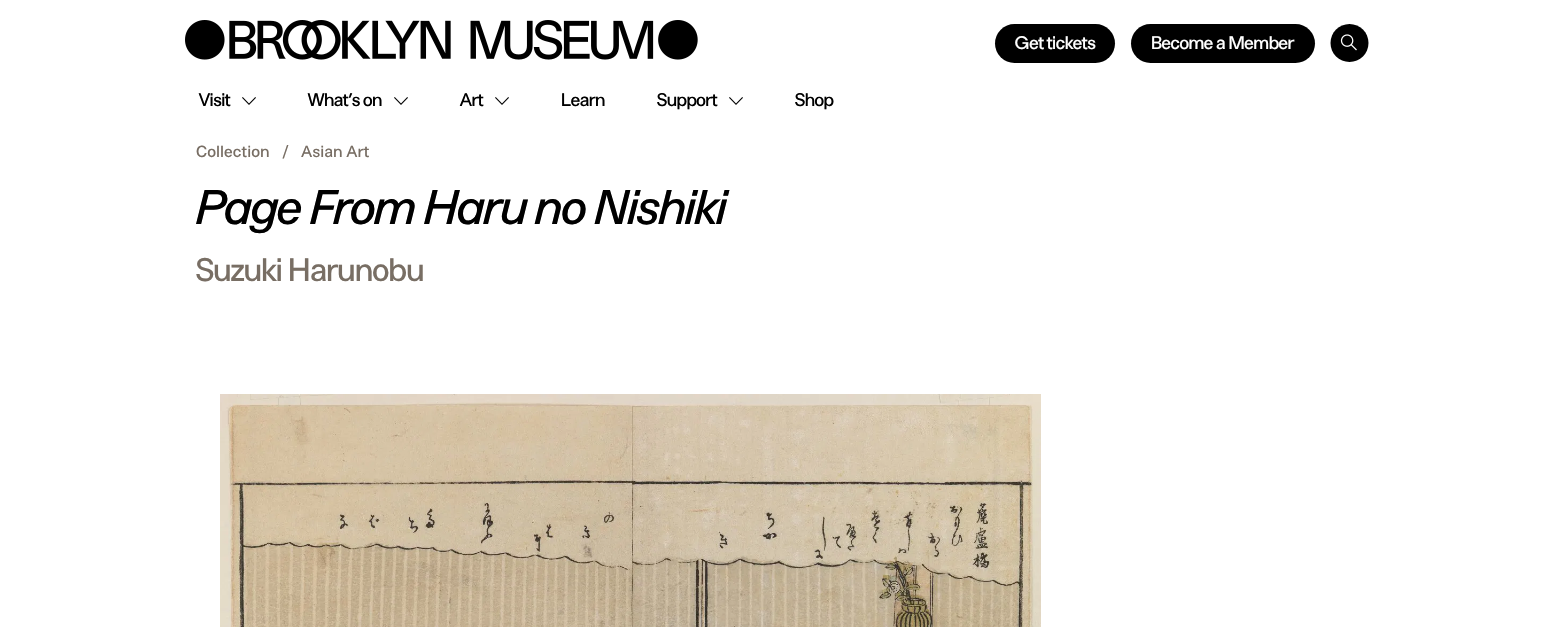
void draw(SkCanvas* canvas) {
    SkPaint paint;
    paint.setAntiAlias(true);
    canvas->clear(0xFFFFFFFF);
    canvas->drawImageRect(SkImages::DeferredFromEncodedData(SkData::MakeFromFileName("img1.png")), SkRect::MakeXYWH(185, 20, 513, 40), SkSamplingOptions());
    paint.setColor(0xFF000000);
    canvas->drawRoundRect(SkRect::MakeXYWH(995, 24, 120, 39), 19.5f, 19.5f, paint);
    SkFont font1(fontMgr->matchFamilyStyle("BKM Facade", SkFontStyle::Normal()), 18);
    font1.setSubpixel(true);
    paint.setColor(0xFFFFFFFF);
    canvas->drawString("Get tickets", 1015, 49, font1, paint);
    paint.setColor(0xFF000000);
    canvas->drawRoundRect(SkRect::MakeXYWH(1131, 24, 184, 39), 19.5f, 19.5f, paint);
    paint.setColor(0xFFFFFFFF);
    canvas->drawString("Become a Member", 1151, 49, font1, paint);
    paint.setColor(0xFF000000);
    canvas->drawPath(SkPathBuilder().moveTo(1349.5f, 24).cubicTo(1339, 24, 1330.5f, 32.5f, 1330.5f, 43).cubicTo(1330.5f, 53.5f, 1339, 62, 1349.5f, 62).cubicTo(1360, 62, 1368.5f, 53.5f, 1368.5f, 43).cubicTo(1368.5f, 32.5f, 1360, 24, 1349.5f, 24).close().detach(), paint);
    canvas->drawImageRect(SkImages::DeferredFromEncodedData(SkData::MakeFromFileName("img2.png")), SkRect::MakeXYWH(1340, 34, 17, 17), SkSamplingOptions());
    canvas->drawString("Visit", 199, 106, font1, paint);
    canvas->drawImageRect(SkImages::DeferredFromEncodedData(SkData::MakeFromFileName("img3.png")), SkRect::MakeXYWH(242, 97, 14, 8), SkSamplingOptions());
    canvas->drawString("What’s on", 308, 106, font1, paint);
    canvas->drawImageRect(SkImages::DeferredFromEncodedData(SkData::MakeFromFileName("img3.png")), SkRect::MakeXYWH(394, 97, 14, 8), SkSamplingOptions());
    canvas->drawString("Art", 460, 106, font1, paint);
    canvas->drawImageRect(SkImages::DeferredFromEncodedData(SkData::MakeFromFileName("img3.png")), SkRect::MakeXYWH(495, 97, 14, 8), SkSamplingOptions());
    canvas->drawString("Learn", 561, 106, font1, paint);
    canvas->drawString("Support", 657, 106, font1, paint);
    canvas->drawImageRect(SkImages::DeferredFromEncodedData(SkData::MakeFromFileName("img3.png")), SkRect::MakeXYWH(729, 97, 14, 8), SkSamplingOptions());
    canvas->drawString("Shop", 795, 106, font1, paint);
    SkFont font2(fontMgr->matchFamilyStyle("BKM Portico", SkFontStyle::Normal()), 16);
    font2.setSubpixel(true);
    paint.setColor(0xFF786E64);
    canvas->drawString("Collection", 196, 157, font2, paint);
    canvas->drawString("/", 282, 157, font2, paint);
    canvas->drawString("Asian Art", 301, 157, font2, paint);
    SkFont font3(fontMgr->matchFamilyStyle("BKM Facade", SkFontStyle::Italic()), 48);
    font3.setSubpixel(true);
    paint.setColor(0xFF000000);
    canvas->drawString("Page From Haru no Nishiki", 196, 224, font3, paint);
    SkFont font4(fontMgr->matchFamilyStyle("BKM Facade", SkFontStyle::Normal()), 32);
    font4.setSubpixel(true);
    paint.setColor(0xFF786E64);
    canvas->drawString("Suzuki Harunobu", 196, 281, font4, paint);
    canvas->drawImageRect(SkImages::DeferredFromEncodedData(SkData::MakeFromFileName("img4.png")), SkRect::MakeXYWH(220, 394, 821, 233), SkSamplingOptions());
}
